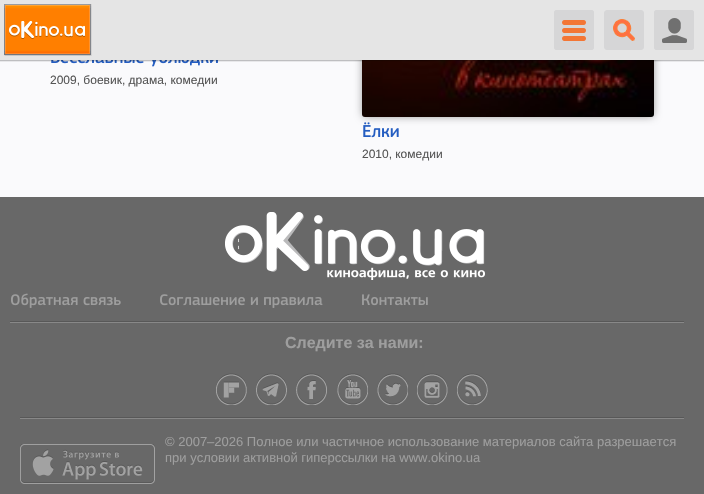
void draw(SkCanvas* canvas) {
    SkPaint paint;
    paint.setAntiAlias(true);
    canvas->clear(0xFFFAFAFC);
    canvas->drawImageRect(SkImages::DeferredFromEncodedData(SkData::MakeFromFileName("img5.png")), SkRect::MakeXYWH(51, 60, 167, 7), SkSamplingOptions());
    canvas->drawImageRect(SkImages::DeferredFromEncodedData(SkData::MakeFromFileName("img7.png")), SkRect::MakeXYWH(363, 122, 36, 16), SkSamplingOptions());
    paint.setColor(0x73010101);
    paint.setMaskFilter(SkMaskFilter::MakeBlur(kNormal_SkBlurStyle, 4));
    canvas->drawRoundRect(SkRect::MakeXYWH(363, -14, 290, 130), 2, 2, paint);
    paint.setMaskFilter(nullptr);
    canvas->drawImageRect(SkImages::DeferredFromEncodedData(SkData::MakeFromFileName("img6.png")), SkRect::MakeXYWH(362, 60, 292, 57), SkSamplingOptions());
    paint.setColor(0x12000000);
    canvas->drawRect(SkRect::MakeXYWH(0, 60, 704, 2), paint);
    paint.setColor(0x2E000000);
    canvas->drawRect(SkRect::MakeXYWH(0, 60, 704, 1), paint);
    paint.setColor(0xFFE5E5E5);
    canvas->drawRect(SkRect::MakeXYWH(0, 0, 704, 60), paint);
    canvas->drawImageRect(SkImages::DeferredFromEncodedData(SkData::MakeFromFileName("img1.png")), SkRect::MakeXYWH(4, 4, 88, 52), SkSamplingOptions());
    paint.setColor(0xFFD6D6D7);
    canvas->drawRoundRect(SkRect::MakeXYWH(554, 10, 40, 40), 3, 3, paint);
    canvas->drawImageRect(SkImages::DeferredFromEncodedData(SkData::MakeFromFileName("img2.png")), SkRect::MakeXYWH(562, 20, 24, 21), SkSamplingOptions());
    paint.setStyle(SkPaint::kStroke_Style);
    paint.setStrokeWidth(1);
    canvas->drawRoundRect(SkRect::MakeXYWH(554.5f, 10.5f, 39, 39), 2.5f, 2.5f, paint);
    paint.setStyle(SkPaint::kFill_Style);
    canvas->drawRoundRect(SkRect::MakeXYWH(604.5f, 10.5f, 39, 39), 2.5f, 2.5f, paint);
    paint.setStyle(SkPaint::kStroke_Style);
    canvas->drawRoundRect(SkRect::MakeXYWH(604.5f, 10.5f, 39, 39), 2.5f, 2.5f, paint);
    canvas->drawImageRect(SkImages::DeferredFromEncodedData(SkData::MakeFromFileName("img3.png")), SkRect::MakeXYWH(613, 19, 22, 22), SkSamplingOptions());
    paint.setStyle(SkPaint::kFill_Style);
    canvas->drawRoundRect(SkRect::MakeXYWH(654, 10, 40, 40), 3, 3, paint);
    canvas->drawImageRect(SkImages::DeferredFromEncodedData(SkData::MakeFromFileName("img4.png")), SkRect::MakeXYWH(662, 18, 25, 25), SkSamplingOptions());
    paint.setStyle(SkPaint::kStroke_Style);
    canvas->drawRoundRect(SkRect::MakeXYWH(654.5f, 10.5f, 39, 39), 2.5f, 2.5f, paint);
    SkFont font1(fontMgr->matchFamilyStyle("Liberation Sans", SkFontStyle::Normal()), 12);
    font1.setSubpixel(true);
    paint.setStyle(SkPaint::kFill_Style);
    paint.setColor(0xFF555555);
    canvas->drawString("2009, боевик, драма, комедии", 50, 84, font1, paint);
    canvas->drawString("2010, комедии", 362, 158, font1, paint);
    paint.setColor(0xFF686868);
    canvas->drawRect(SkRect::MakeXYWH(0, 197, 704, 297), paint);
    canvas->drawImageRect(SkImages::DeferredFromEncodedData(SkData::MakeFromFileName("img8.png")), SkRect::MakeXYWH(225, 212, 260, 68), SkSamplingOptions());
    canvas->drawImageRect(SkImages::DeferredFromEncodedData(SkData::MakeFromFileName("img9.png")), SkRect::MakeXYWH(11, 293, 110, 15), SkSamplingOptions());
    canvas->drawImageRect(SkImages::DeferredFromEncodedData(SkData::MakeFromFileName("img10.png")), SkRect::MakeXYWH(160, 294, 163, 14), SkSamplingOptions());
    canvas->drawImageRect(SkImages::DeferredFromEncodedData(SkData::MakeFromFileName("img11.png")), SkRect::MakeXYWH(362, 294, 66, 12), SkSamplingOptions());
    paint.setColor(0xFF585858);
    canvas->drawRect(SkRect::MakeXYWH(10, 321, 674, 1), paint);
    paint.setColor(0xFF888888);
    canvas->drawRect(SkRect::MakeXYWH(10, 322, 674, 1), paint);
    SkFont font2(fontMgr->matchFamilyStyle("Liberation Sans", SkFontStyle::Bold()), 16);
    font2.setSubpixel(true);
    paint.setColor(0xFF9E9E9E);
    canvas->drawString("Следите за нами:", 285, 348, font2, paint);
    canvas->drawImageRect(SkImages::DeferredFromEncodedData(SkData::MakeFromFileName("img12.png")), SkRect::MakeXYWH(216, 373, 31, 32), SkSamplingOptions());
    canvas->drawImageRect(SkImages::DeferredFromEncodedData(SkData::MakeFromFileName("img13.png")), SkRect::MakeXYWH(256, 373, 31, 32), SkSamplingOptions());
    canvas->drawImageRect(SkImages::DeferredFromEncodedData(SkData::MakeFromFileName("img14.png")), SkRect::MakeXYWH(296, 373, 31, 32), SkSamplingOptions());
    canvas->drawImageRect(SkImages::DeferredFromEncodedData(SkData::MakeFromFileName("img15.png")), SkRect::MakeXYWH(337, 373, 31, 32), SkSamplingOptions());
    canvas->drawImageRect(SkImages::DeferredFromEncodedData(SkData::MakeFromFileName("img16.png")), SkRect::MakeXYWH(377, 373, 31, 32), SkSamplingOptions());
    canvas->drawImageRect(SkImages::DeferredFromEncodedData(SkData::MakeFromFileName("img17.png")), SkRect::MakeXYWH(417, 373, 31, 32), SkSamplingOptions());
    canvas->drawImageRect(SkImages::DeferredFromEncodedData(SkData::MakeFromFileName("img18.png")), SkRect::MakeXYWH(457, 373, 31, 32), SkSamplingOptions());
    paint.setColor(0xFF585858);
    canvas->drawRect(SkRect::MakeXYWH(20, 417, 664, 1), paint);
    paint.setColor(0xFF888888);
    canvas->drawRect(SkRect::MakeXYWH(20, 418, 664, 1), paint);
    canvas->drawImageRect(SkImages::DeferredFromEncodedData(SkData::MakeFromFileName("img19.png")), SkRect::MakeXYWH(20, 444, 135, 40), SkSamplingOptions());
    SkFont font3(fontMgr->matchFamilyStyle("Liberation Sans", SkFontStyle::Normal()), 13);
    font3.setSubpixel(true);
    paint.setColor(0xFF9E9E9E);
    canvas->drawString("© 2007–2026 Полное или частичное использование материалов сайта разрешается", 165, 446, font3, paint);
    canvas->drawString("при условии активной гиперссылки на www.okino.ua", 165, 462, font3, paint);
}
